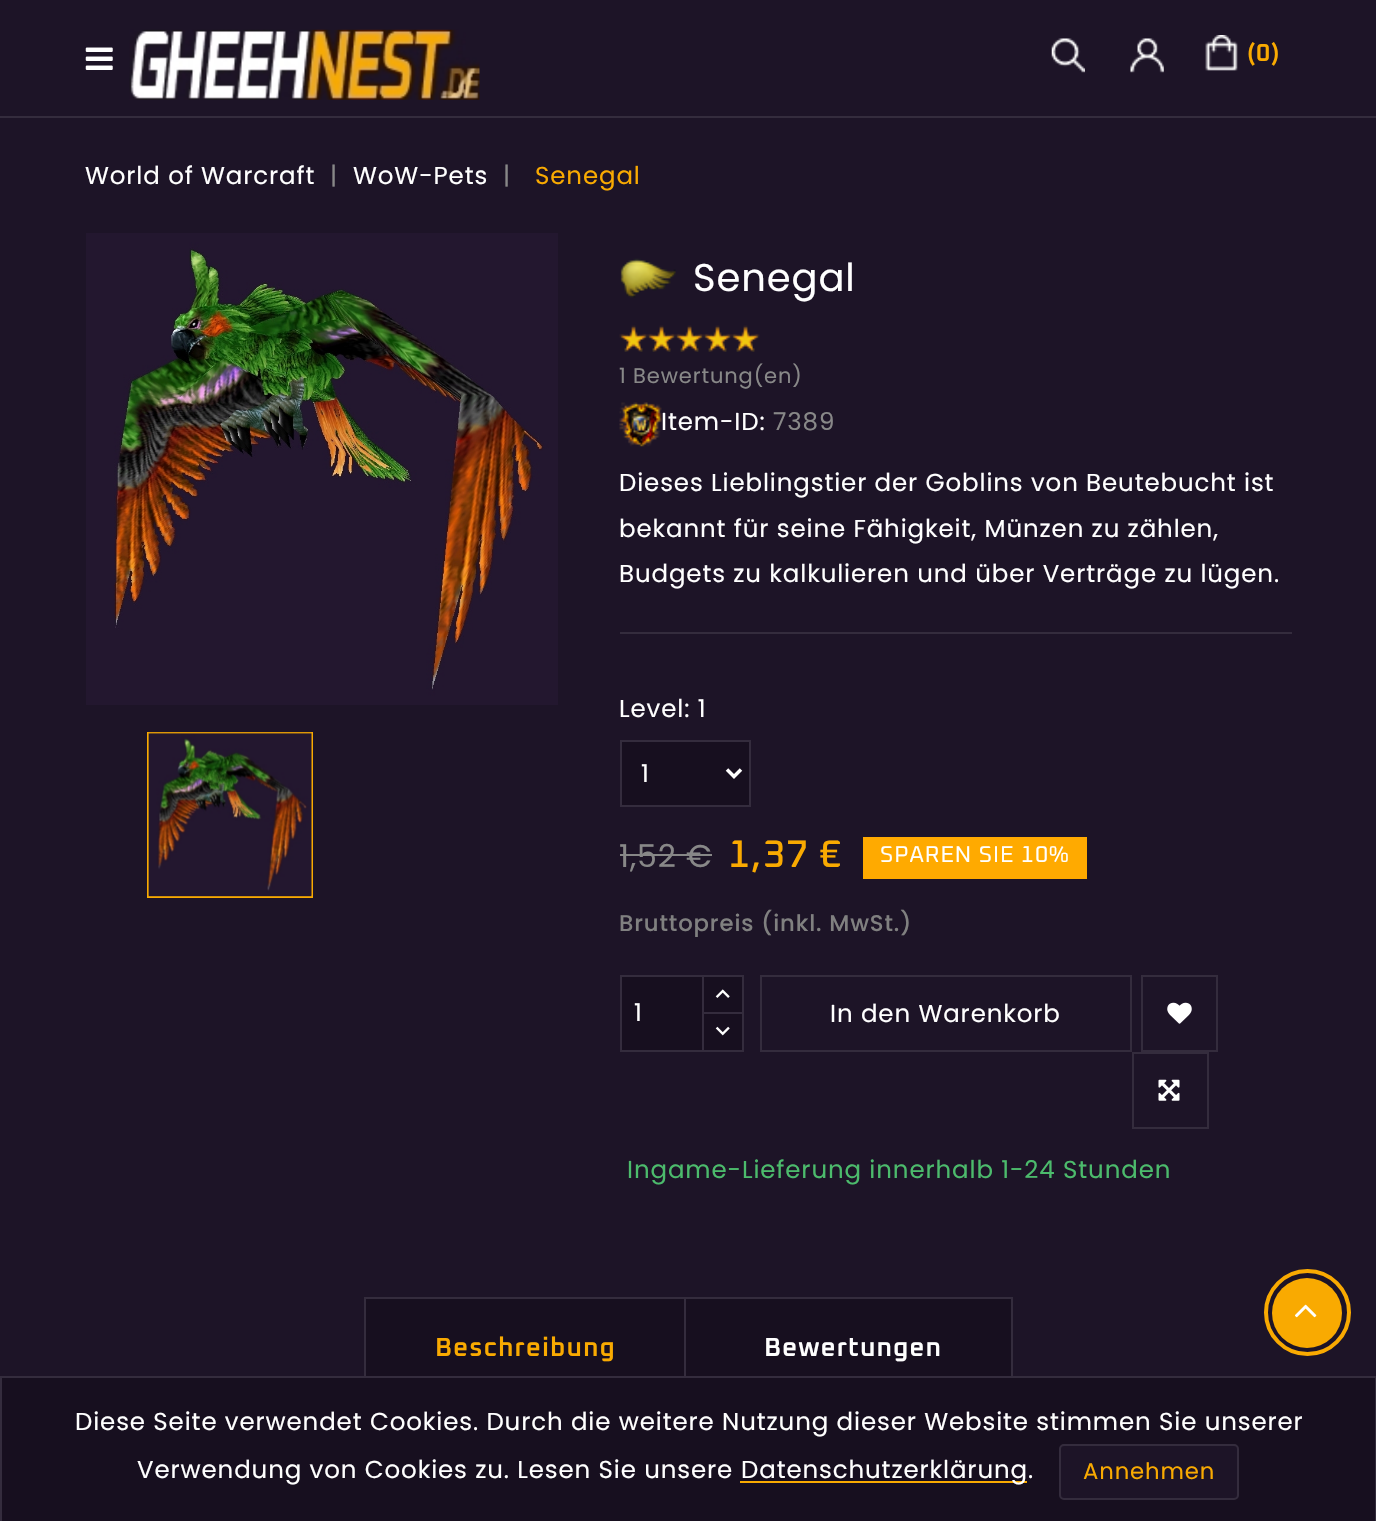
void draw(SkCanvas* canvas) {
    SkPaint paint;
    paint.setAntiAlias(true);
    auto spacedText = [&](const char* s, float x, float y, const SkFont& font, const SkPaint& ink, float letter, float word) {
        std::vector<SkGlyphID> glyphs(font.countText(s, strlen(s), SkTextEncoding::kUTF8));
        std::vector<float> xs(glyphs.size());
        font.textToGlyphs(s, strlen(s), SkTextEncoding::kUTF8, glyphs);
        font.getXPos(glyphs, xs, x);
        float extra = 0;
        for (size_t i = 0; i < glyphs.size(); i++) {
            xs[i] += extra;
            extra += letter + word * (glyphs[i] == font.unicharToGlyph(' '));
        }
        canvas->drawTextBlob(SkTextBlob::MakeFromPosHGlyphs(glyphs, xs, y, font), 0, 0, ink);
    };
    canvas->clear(0xFF1D1427);
    paint.setColor(0xFF342C3D);
    canvas->drawRect(SkRect::MakeXYWH(0, 116, 1376, 2), paint);
    canvas->drawImageRect(SkImages::DeferredFromEncodedData(SkData::MakeFromFileName("img1.png")), SkRect::MakeXYWH(85, 47, 28, 23), SkSamplingOptions());
    canvas->drawImageRect(SkImages::DeferredFromEncodedData(SkData::MakeFromFileName("img2.png")), SkRect::MakeXYWH(129, 29, 351, 71), SkSamplingOptions());
    canvas->drawImageRect(SkImages::DeferredFromEncodedData(SkData::MakeFromFileName("img3.png")), SkRect::MakeXYWH(1051, 38, 34, 35), SkSamplingOptions());
    canvas->drawImageRect(SkImages::DeferredFromEncodedData(SkData::MakeFromFileName("img4.png")), SkRect::MakeXYWH(1130, 38, 34, 35), SkSamplingOptions());
    canvas->drawImageRect(SkImages::DeferredFromEncodedData(SkData::MakeFromFileName("img5.png")), SkRect::MakeXYWH(1205, 35, 33, 36), SkSamplingOptions());
    SkFont font1(fontMgr->matchFamilyStyle("Oxanium", SkFontStyle(600, SkFontStyle::kNormal_Width, SkFontStyle::kUpright_Slant)), 24.5f);
    font1.setSubpixel(true);
    paint.setColor(0xFFF9AA01);
    spacedText("(0)", 1247, 61, font1, paint, 0.88f, 0);
    SkFont font2(fontMgr->matchFamilyStyle("Poppins", SkFontStyle::Normal()), 24.5f);
    font2.setSubpixel(true);
    paint.setColor(0xFFFFFFFF);
    spacedText("World of Warcraft", 85, 184, font2, paint, 0.88f, 0);
    paint.setColor(0xFF888888);
    spacedText("|", 330, 184, font2, paint, 0.88f, 0);
    paint.setColor(0xFFFFFFFF);
    spacedText("WoW-Pets", 353, 184, font2, paint, 0.88f, 0);
    paint.setColor(0xFF888888);
    spacedText("|", 503, 184, font2, paint, 0.88f, 0);
    paint.setColor(0xFFF9AA01);
    spacedText("Senegal", 535, 184, font2, paint, 0.88f, 0);
    canvas->drawImageRect(SkImages::DeferredFromEncodedData(SkData::MakeFromFileName("img6.png")), SkRect::MakeXYWH(86, 233, 472, 472), SkSamplingOptions());
    paint.setStyle(SkPaint::kStroke_Style);
    paint.setStrokeWidth(2);
    canvas->drawRect(SkRect::MakeXYWH(148, 733, 164, 164), paint);
    canvas->drawImageRect(SkImages::DeferredFromEncodedData(SkData::MakeFromFileName("img7.png")), SkRect::MakeXYWH(148, 732, 164, 165), SkSamplingOptions());
    canvas->drawImageRect(SkImages::DeferredFromEncodedData(SkData::MakeFromFileName("img8.png")), SkRect::MakeXYWH(620, 258, 56, 40), SkSamplingOptions());
    SkFont font3(fontMgr->matchFamilyStyle("Poppins", SkFontStyle::Normal()), 38.5f);
    font3.setSubpixel(true);
    paint.setStyle(SkPaint::kFill_Style);
    paint.setColor(0xFFFFFFFF);
    spacedText("Senegal", 693, 291, font3, paint, 0.88f, 0);
    canvas->drawImageRect(SkImages::DeferredFromEncodedData(SkData::MakeFromFileName("img9.png")), SkRect::MakeXYWH(619, 325, 29, 27), SkSamplingOptions());
    canvas->drawImageRect(SkImages::DeferredFromEncodedData(SkData::MakeFromFileName("img10.png")), SkRect::MakeXYWH(647, 325, 29, 27), SkSamplingOptions());
    canvas->drawImageRect(SkImages::DeferredFromEncodedData(SkData::MakeFromFileName("img10.png")), SkRect::MakeXYWH(675, 325, 29, 27), SkSamplingOptions());
    canvas->drawImageRect(SkImages::DeferredFromEncodedData(SkData::MakeFromFileName("img11.png")), SkRect::MakeXYWH(703, 325, 29, 27), SkSamplingOptions());
    canvas->drawImageRect(SkImages::DeferredFromEncodedData(SkData::MakeFromFileName("img11.png")), SkRect::MakeXYWH(731, 325, 29, 27), SkSamplingOptions());
    SkFont font4(fontMgr->matchFamilyStyle("Poppins", SkFontStyle::Normal()), 21);
    font4.setSubpixel(true);
    paint.setColor(0xFF888888);
    spacedText("1 Bewertung(en)", 619, 383, font4, paint, 0.88f, 0);
    canvas->drawImageRect(SkImages::DeferredFromEncodedData(SkData::MakeFromFileName("img12.png")), SkRect::MakeXYWH(619, 402, 43, 45), SkSamplingOptions());
    paint.setColor(0xFFFFFFFF);
    spacedText("Item-ID:", 661, 430, font2, paint, 0.88f, 0);
    paint.setColor(0xFF888888);
    spacedText("7389", 773, 430, font2, paint, 0.88f, 0);
    paint.setColor(0xFFFFFFFF);
    spacedText("Dieses Lieblingstier der Goblins von Beutebucht ist", 619, 491, font2, paint, 0.88f, 0);
    spacedText("bekannt für seine Fähigkeit, Münzen zu zählen,", 619, 537, font2, paint, 0.88f, 0);
    spacedText("Budgets zu kalkulieren und über Verträge zu lügen.", 619, 582, font2, paint, 0.88f, 0);
    paint.setColor(0xFF342C3D);
    canvas->drawRect(SkRect::MakeXYWH(620, 632, 672, 2), paint);
    paint.setColor(0xFFFFFFFF);
    spacedText("Level: 1", 619, 717, font2, paint, 0.88f, 0);
    paint.setColor(0xFF170F1F);
    canvas->drawRect(SkRect::MakeXYWH(621, 741, 129, 65), paint);
    paint.setStyle(SkPaint::kStroke_Style);
    paint.setColor(0xFF342C3D);
    canvas->drawRect(SkRect::MakeXYWH(621, 741, 129, 65), paint);
    paint.setStrokeWidth(3.5f);
    paint.setColor(0xFFFFFFFF);
    canvas->drawPath(SkPathBuilder().moveTo(727, 769.5f).lineTo(734, 776.5f).lineTo(741, 769.5f).detach(), paint);
    paint.setStyle(SkPaint::kFill_Style);
    canvas->drawString("1", 641, 782, font2, paint);
    SkFont font5(fontMgr->matchFamilyStyle("Poppins", SkFontStyle::Normal()), 31.5f);
    font5.setSubpixel(true);
    paint.setColor(0xFF888888);
    spacedText("1,52 €", 619, 867, font5, paint, 0.88f, 0);
    paint.setColor(0xFF878787);
    canvas->drawRect(SkRect::MakeXYWH(620, 854, 92, 2), paint);
    SkFont font6(fontMgr->matchFamilyStyle("Oxanium", SkFontStyle(500, SkFontStyle::kNormal_Width, SkFontStyle::kUpright_Slant)), 38.5f);
    font6.setSubpixel(true);
    paint.setColor(0xFFF9AA01);
    spacedText("1,37 €", 728, 867, font6, paint, 1, 0);
    paint.setColor(0xFFFFAA00);
    canvas->drawRect(SkRect::MakeXYWH(863, 837, 224, 42), paint);
    SkFont font7(fontMgr->matchFamilyStyle("Oxanium", SkFontStyle::Normal()), 22.75f);
    font7.setSubpixel(true);
    paint.setColor(0xFFFFFFFF);
    spacedText("SPAREN SIE 10%", 880, 862, font7, paint, 1, 0);
    SkFont font8(fontMgr->matchFamilyStyle("Poppins", SkFontStyle(500, SkFontStyle::kNormal_Width, SkFontStyle::kUpright_Slant)), 22.75f);
    font8.setSubpixel(true);
    paint.setColor(0xFF808080);
    spacedText("Bruttopreis (inkl. MwSt.)", 619, 931, font8, paint, 0.88f, 0);
    paint.setColor(0xFF170F1F);
    canvas->drawRect(SkRect::MakeXYWH(704, 977, 38, 35), paint);
    paint.setStyle(SkPaint::kStroke_Style);
    paint.setStrokeWidth(2);
    paint.setColor(0xFF342C3D);
    canvas->drawRect(SkRect::MakeXYWH(703, 976, 40, 38), paint);
    paint.setStyle(SkPaint::kFill_Style);
    paint.setColor(0xFF170F1F);
    canvas->drawRect(SkRect::MakeXYWH(703, 1013, 40, 38), paint);
    paint.setStyle(SkPaint::kStroke_Style);
    paint.setColor(0xFF342C3D);
    canvas->drawRect(SkRect::MakeXYWH(703, 1013, 40, 38), paint);
    paint.setStyle(SkPaint::kFill_Style);
    paint.setColor(0xFF170F1F);
    canvas->drawRect(SkRect::MakeXYWH(621, 976, 82, 75), paint);
    paint.setStyle(SkPaint::kStroke_Style);
    paint.setColor(0xFF342C3D);
    canvas->drawRect(SkRect::MakeXYWH(621, 976, 82, 75), paint);
    paint.setStyle(SkPaint::kFill_Style);
    paint.setColor(0xFFFFFFFF);
    canvas->drawString("1", 634, 1021, font2, paint);
    canvas->drawImageRect(SkImages::DeferredFromEncodedData(SkData::MakeFromFileName("img13.png")), SkRect::MakeXYWH(715, 989, 15, 9), SkSamplingOptions());
    canvas->drawImageRect(SkImages::DeferredFromEncodedData(SkData::MakeFromFileName("img14.png")), SkRect::MakeXYWH(715, 1026, 15, 10), SkSamplingOptions());
    paint.setStyle(SkPaint::kStroke_Style);
    paint.setColor(0xFF342C3D);
    canvas->drawRect(SkRect::MakeXYWH(761, 976, 370, 75), paint);
    paint.setStyle(SkPaint::kFill_Style);
    paint.setColor(0xFFFFFFFF);
    spacedText("In den Warenkorb", 830, 1022, font2, paint, 0.88f, 0);
    paint.setStyle(SkPaint::kStroke_Style);
    paint.setColor(0xFF342C3D);
    canvas->drawRect(SkRect::MakeXYWH(1142, 976, 75, 75), paint);
    canvas->drawImageRect(SkImages::DeferredFromEncodedData(SkData::MakeFromFileName("img15.png")), SkRect::MakeXYWH(1167, 1002, 25, 22), SkSamplingOptions());
    canvas->drawRect(SkRect::MakeXYWH(1133, 1053, 75, 75), paint);
    canvas->drawImageRect(SkImages::DeferredFromEncodedData(SkData::MakeFromFileName("img16.png")), SkRect::MakeXYWH(1158, 1079, 22, 22), SkSamplingOptions());
    paint.setStyle(SkPaint::kFill_Style);
    paint.setColor(0xFF4CBB6C);
    spacedText("Ingame-Lieferung innerhalb 1-24 Stunden", 627, 1178, font2, paint, 0.88f, 0);
    paint.setColor(0xFF170F1F);
    canvas->drawRect(SkRect::MakeXYWH(366, 1299, 645, 77), paint);
    paint.setStyle(SkPaint::kStroke_Style);
    paint.setColor(0xFF342C3D);
    canvas->drawRect(SkRect::MakeXYWH(365, 1298, 647, 103), paint);
    SkFont font9(fontMgr->matchFamilyStyle("Oxanium", SkFontStyle(600, SkFontStyle::kNormal_Width, SkFontStyle::kUpright_Slant)), 26.25f);
    font9.setSubpixel(true);
    paint.setStyle(SkPaint::kFill_Style);
    paint.setColor(0xFFF9AA01);
    spacedText("Beschreibung", 435, 1356, font9, paint, 1, 0);
    paint.setColor(0xFF342C3D);
    canvas->drawRect(SkRect::MakeXYWH(684, 1299, 2, 77), paint);
    paint.setColor(0xFFFFFFFF);
    spacedText("Bewertungen", 764, 1356, font9, paint, 1, 0);
    paint.setColor(0xFFF9AA01);
    canvas->drawCircle(1307, 1313, 35, paint);
    canvas->drawImageRect(SkImages::DeferredFromEncodedData(SkData::MakeFromFileName("img17.png")), SkRect::MakeXYWH(1295, 1304, 22, 14), SkSamplingOptions());
    paint.setStyle(SkPaint::kStroke_Style);
    paint.setStrokeWidth(4);
    canvas->drawCircle(1307.5f, 1312.5f, 41.5f, paint);
    paint.setStyle(SkPaint::kFill_Style);
    paint.setColor(0xFF170F1F);
    canvas->drawRect(SkRect::MakeXYWH(1, 1377, 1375, 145), paint);
    paint.setStyle(SkPaint::kStroke_Style);
    paint.setStrokeWidth(2);
    paint.setColor(0xFF342C3D);
    canvas->drawRect(SkRect::MakeXYWH(1, 1377, 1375, 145), paint);
    paint.setStyle(SkPaint::kFill_Style);
    paint.setColor(0xFFFFFFFF);
    spacedText("Diese Seite verwendet Cookies. Durch die weitere Nutzung dieser Website stimmen Sie unserer", 75, 1430, font2, paint, 0.88f, 0);
    spacedText("Verwendung von Cookies zu. Lesen Sie unsere", 137, 1478, font2, paint, 0.88f, 0);
    paint.setColor(0xFFF9AA01);
    canvas->drawRect(SkRect::MakeXYWH(740, 1481, 287, 2), paint);
    paint.setColor(0xFFFFFFFF);
    spacedText("Datenschutzerklärung.", 741, 1478, font2, paint, 0.88f, 0);
    paint.setColor(0xFF1D1427);
    canvas->drawRoundRect(SkRect::MakeXYWH(1060, 1445, 178, 54), 4, 4, paint);
    paint.setStyle(SkPaint::kStroke_Style);
    paint.setColor(0xFF342C3D);
    canvas->drawRoundRect(SkRect::MakeXYWH(1060, 1445, 178, 54), 4, 4, paint);
    SkFont font10(fontMgr->matchFamilyStyle("Poppins", SkFontStyle::Normal()), 22.75f);
    font10.setSubpixel(true);
    paint.setStyle(SkPaint::kFill_Style);
    paint.setColor(0xFFF9AA01);
    spacedText("Annehmen", 1083, 1479, font10, paint, 0.88f, 0);
}
